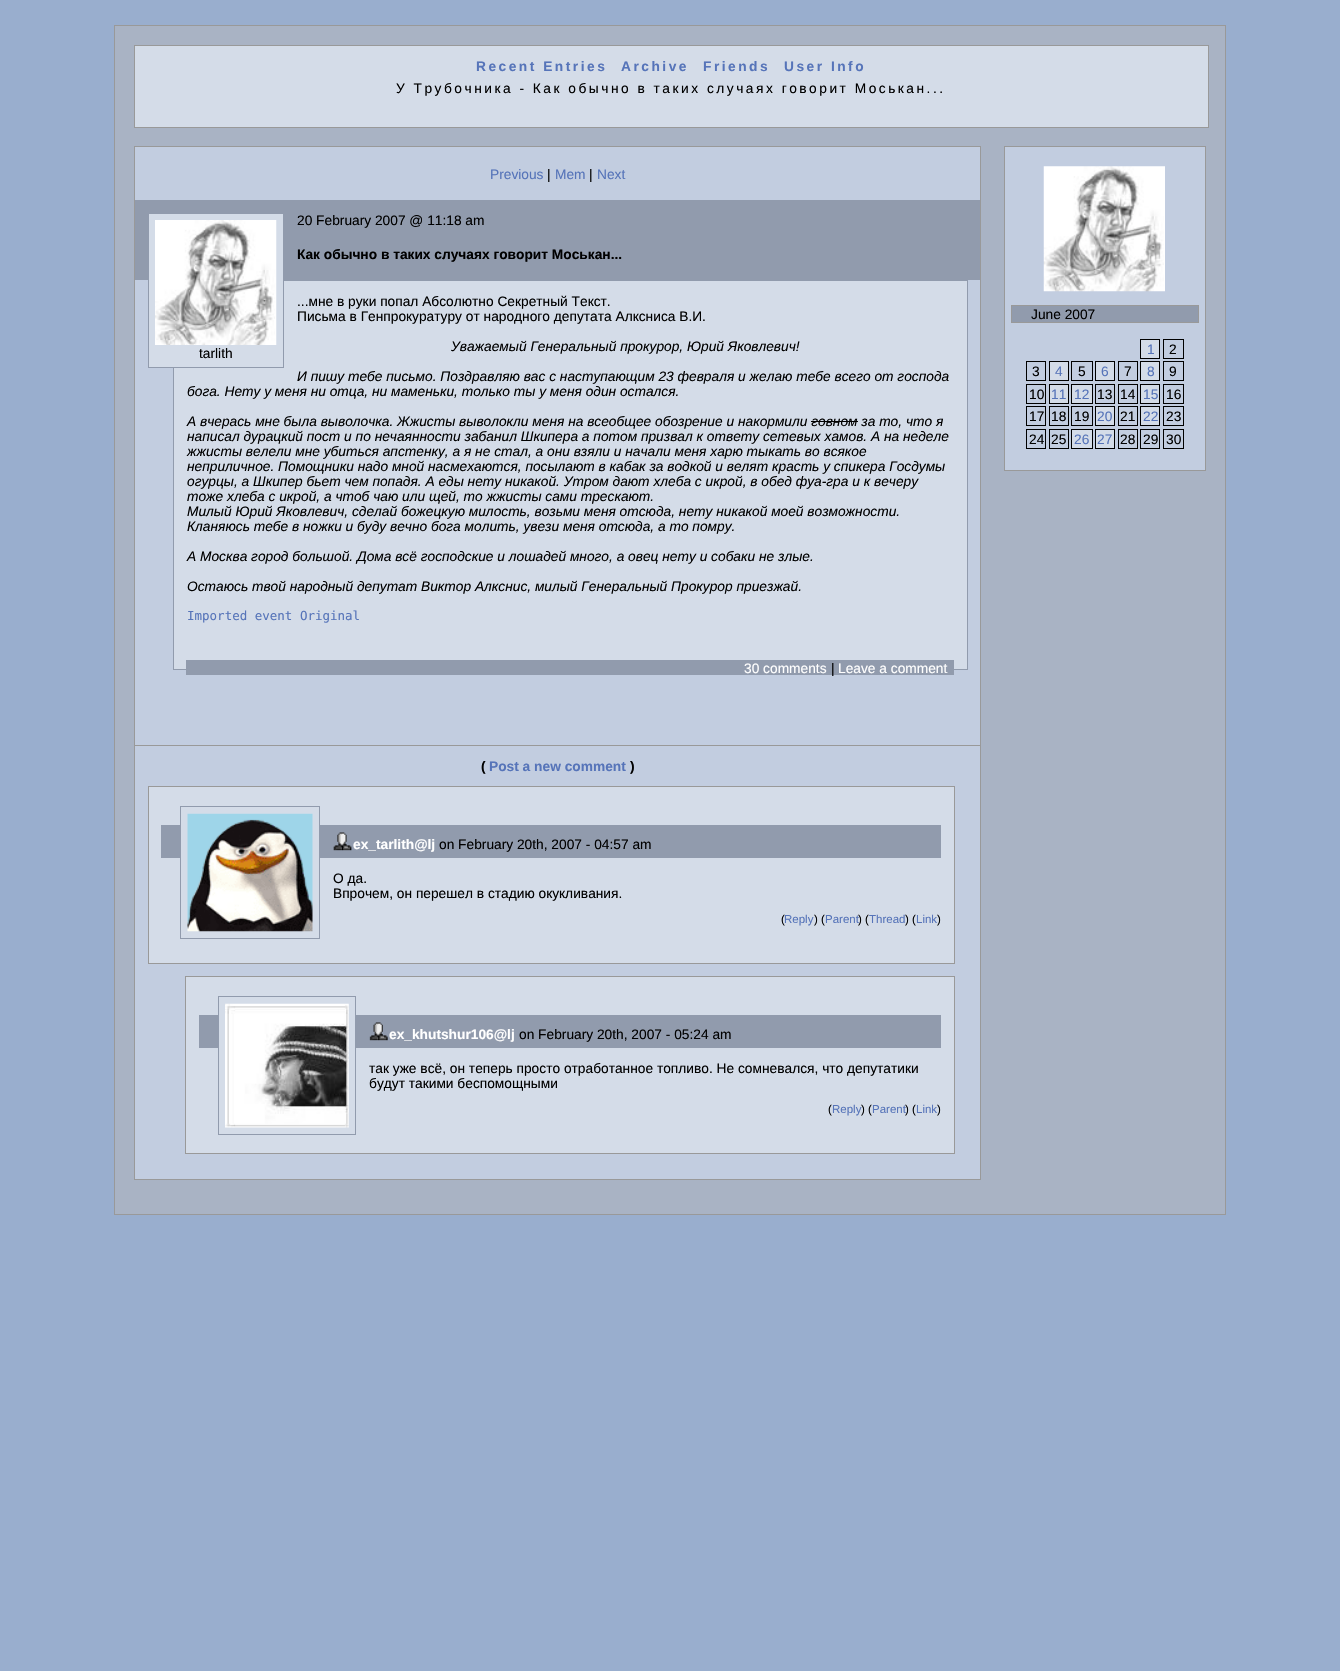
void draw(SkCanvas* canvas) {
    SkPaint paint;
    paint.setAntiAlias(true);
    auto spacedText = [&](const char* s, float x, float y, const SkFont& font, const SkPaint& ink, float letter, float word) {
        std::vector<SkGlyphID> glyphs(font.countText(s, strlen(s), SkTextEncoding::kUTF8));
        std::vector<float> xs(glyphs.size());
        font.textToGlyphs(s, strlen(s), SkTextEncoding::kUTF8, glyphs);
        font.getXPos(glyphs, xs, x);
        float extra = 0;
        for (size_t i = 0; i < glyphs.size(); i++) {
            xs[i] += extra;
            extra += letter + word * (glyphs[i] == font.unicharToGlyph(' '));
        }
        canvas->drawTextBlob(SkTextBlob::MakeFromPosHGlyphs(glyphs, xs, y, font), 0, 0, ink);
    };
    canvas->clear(0xFF99AECE);
    paint.setColor(0xFFA9B3C4);
    canvas->drawRect(SkRect::MakeXYWH(114.5f, 25.5f, 1111, 1189), paint);
    paint.setStyle(SkPaint::kStroke_Style);
    paint.setStrokeWidth(1);
    paint.setColor(0xFF999999);
    canvas->drawRect(SkRect::MakeXYWH(114.5f, 25.5f, 1111, 1189), paint);
    paint.setStyle(SkPaint::kFill_Style);
    paint.setColor(0xFFD4DCE8);
    canvas->drawRect(SkRect::MakeXYWH(134.5f, 45.5f, 1074, 82), paint);
    paint.setStyle(SkPaint::kStroke_Style);
    paint.setColor(0xFF999999);
    canvas->drawRect(SkRect::MakeXYWH(134.5f, 45.5f, 1074, 82), paint);
    SkFont font1(fontMgr->matchFamilyStyle("Liberation Sans", SkFontStyle::Bold()), 13.75f);
    font1.setSubpixel(true);
    paint.setStyle(SkPaint::kFill_Style);
    paint.setColor(0xFF5674B9);
    spacedText("Recent Entries", 476, 71, font1, paint, 2.5f, 0);
    spacedText("Archive", 621, 71, font1, paint, 2.5f, 0);
    spacedText("Friends", 703, 71, font1, paint, 2.5f, 0);
    spacedText("User Info", 784, 71, font1, paint, 2.5f, 0);
    SkFont font2(fontMgr->matchFamilyStyle("Liberation Sans", SkFontStyle::Normal()), 13.75f);
    font2.setSubpixel(true);
    paint.setColor(0xFF000000);
    spacedText("У Трубочника - Как обычно в таких случаях говорит Моськан...", 396, 93, font2, paint, 2.5f, 0);
    paint.setColor(0xFFC2CDE0);
    canvas->drawRect(SkRect::MakeXYWH(134.5f, 146.5f, 846, 1033), paint);
    paint.setStyle(SkPaint::kStroke_Style);
    paint.setColor(0xFF999999);
    canvas->drawRect(SkRect::MakeXYWH(134.5f, 146.5f, 846, 1033), paint);
    paint.setStyle(SkPaint::kFill_Style);
    paint.setColor(0xFF5674B9);
    canvas->drawString("Previous", 490, 179, font2, paint);
    paint.setColor(0xFF000000);
    canvas->drawString("|", 547, 179, font2, paint);
    paint.setColor(0xFF5674B9);
    canvas->drawString("Mem", 555, 179, font2, paint);
    paint.setColor(0xFF000000);
    canvas->drawString("|", 589, 179, font2, paint);
    paint.setColor(0xFF5674B9);
    canvas->drawString("Next", 597, 179, font2, paint);
    paint.setColor(0xFF919BAD);
    canvas->drawRect(SkRect::MakeXYWH(135, 200, 845, 80), paint);
    paint.setColor(0xFF000000);
    canvas->drawString("20 February 2007 @ 11:18 am", 297, 225, font2, paint);
    canvas->drawString("Как обычно в таких случаях говорит Моськан...", 297, 259, font1, paint);
    paint.setColor(0xFFD4DCE8);
    canvas->drawRect(SkRect::MakeXYWH(173.5f, 280.5f, 794, 389), paint);
    paint.setStyle(SkPaint::kStroke_Style);
    paint.setColor(0xFF919BAD);
    canvas->drawRect(SkRect::MakeXYWH(173.5f, 280.5f, 794, 389), paint);
    paint.setStyle(SkPaint::kFill_Style);
    paint.setColor(0xFF000000);
    canvas->drawString("...мне в руки попал Абсолютно Секретный Текст.", 297, 306, font2, paint);
    canvas->drawString("Письма в Генпрокуратуру от народного депутата Алксниса В.И.", 297, 321, font2, paint);
    SkFont font3(fontMgr->matchFamilyStyle("Liberation Sans", SkFontStyle::Italic()), 13.75f);
    font3.setSubpixel(true);
    canvas->drawString("Уважаемый Генеральный прокурор, Юрий Яковлевич!", 451, 351, font3, paint);
    canvas->drawString("И пишу тебе письмо. Поздравляю вас с наступающим 23 февраля и желаю тебе всего от господа", 297, 381, font3, paint);
    canvas->drawString("бога. Нету у меня ни отца, ни маменьки, только ты у меня один остался.", 187, 396, font3, paint);
    canvas->drawString("А вчерась мне была выволочка. Жжисты выволокли меня на всеобщее обозрение и накормили говном за то, что я", 187, 426, font3, paint);
    canvas->drawRect(SkRect::MakeXYWH(811, 421, 47, 1), paint);
    canvas->drawString("написал дурацкий пост и по нечаянности забанил Шкипера а потом призвал к ответу сетевых хамов. А на неделе", 187, 441, font3, paint);
    canvas->drawString("жжисты велели мне убиться апстенку, а я не стал, а они взяли и начали меня харю тыкать во всякое", 187, 456, font3, paint);
    canvas->drawString("неприличное. Помощники надо мной насмехаются, посылают в кабак за водкой и велят красть у спикера Госдумы", 187, 471, font3, paint);
    canvas->drawString("огурцы, а Шкипер бьет чем попадя. А еды нету никакой. Утром дают хлеба с икрой, в обед фуа-гра и к вечеру", 187, 486, font3, paint);
    canvas->drawString("тоже хлеба с икрой, а чтоб чаю или щей, то жжисты сами трескают.", 187, 501, font3, paint);
    canvas->drawString("Милый Юрий Яковлевич, сделай божецкую милость, возьми меня отсюда, нету никакой моей возможности.", 187, 516, font3, paint);
    canvas->drawString("Кланяюсь тебе в ножки и буду вечно бога молить, увези меня отсюда, а то помру.", 187, 531, font3, paint);
    canvas->drawString("А Москва город большой. Дома всё господские и лошадей много, а овец нету и собаки не злые.", 187, 561, font3, paint);
    canvas->drawString("Остаюсь твой народный депутат Виктор Алкснис, милый Генеральный Прокурор приезжай.", 187, 591, font3, paint);
    SkFont font4(fontMgr->matchFamilyStyle("DejaVu Sans Mono", SkFontStyle::Normal()), 12.5f);
    font4.setSubpixel(true);
    paint.setColor(0xFF5674B9);
    canvas->drawString("Imported event Original", 187, 620, font4, paint);
    paint.setColor(0xFF919BAD);
    canvas->drawRect(SkRect::MakeXYWH(186, 660, 768, 15), paint);
    paint.setColor(0xFFFFFFFF);
    canvas->drawString("30 comments", 744, 673, font2, paint);
    paint.setColor(0xFF000000);
    canvas->drawString("|", 831, 673, font2, paint);
    paint.setColor(0xFFFFFFFF);
    canvas->drawString("Leave a comment", 838, 673, font2, paint);
    paint.setColor(0xFFD4DCE8);
    canvas->drawRect(SkRect::MakeXYWH(148.5f, 213.5f, 135, 154), paint);
    paint.setStyle(SkPaint::kStroke_Style);
    paint.setColor(0xFF919BAD);
    canvas->drawRect(SkRect::MakeXYWH(148.5f, 213.5f, 135, 154), paint);
    canvas->drawImageRect(SkImages::DeferredFromEncodedData(SkData::MakeFromFileName("img1.png")), SkRect::MakeXYWH(155, 220, 122, 125), SkSamplingOptions());
    paint.setStyle(SkPaint::kFill_Style);
    paint.setColor(0xFF000000);
    canvas->drawString("tarlith", 199, 358, font2, paint);
    paint.setColor(0xFF999999);
    canvas->drawRect(SkRect::MakeXYWH(135, 745, 845, 1), paint);
    paint.setColor(0xFF000000);
    canvas->drawString("(", 481, 771, font1, paint);
    paint.setColor(0xFF5674B9);
    canvas->drawString("Post a new comment", 489, 771, font1, paint);
    paint.setColor(0xFF000000);
    canvas->drawString(")", 630, 771, font1, paint);
    paint.setColor(0xFFD4DCE8);
    canvas->drawRect(SkRect::MakeXYWH(148.5f, 786.5f, 806, 177), paint);
    paint.setStyle(SkPaint::kStroke_Style);
    paint.setColor(0xFF999999);
    canvas->drawRect(SkRect::MakeXYWH(148.5f, 786.5f, 806, 177), paint);
    paint.setStyle(SkPaint::kFill_Style);
    paint.setColor(0xFF919BAD);
    canvas->drawRect(SkRect::MakeXYWH(161, 825, 780, 33), paint);
    paint.setColor(0xFFD4DCE8);
    canvas->drawRect(SkRect::MakeXYWH(181, 825, 138, 33), paint);
    paint.setStyle(SkPaint::kStroke_Style);
    paint.setColor(0xFF919BAD);
    canvas->drawRect(SkRect::MakeXYWH(180.5f, 806.5f, 139, 132), paint);
    canvas->drawImageRect(SkImages::DeferredFromEncodedData(SkData::MakeFromFileName("img2.png")), SkRect::MakeXYWH(187, 813, 126, 119), SkSamplingOptions());
    canvas->drawImageRect(SkImages::DeferredFromEncodedData(SkData::MakeFromFileName("img3.png")), SkRect::MakeXYWH(333, 832, 19, 19), SkSamplingOptions());
    paint.setStyle(SkPaint::kFill_Style);
    paint.setColor(0xFFFFFFFF);
    canvas->drawString("ex_tarlith@lj", 353, 849, font1, paint);
    paint.setColor(0xFF000000);
    canvas->drawString("on February 20th, 2007 - 04:57 am", 439, 849, font2, paint);
    canvas->drawString("О да.", 333, 883, font2, paint);
    canvas->drawString("Впрочем, он перешел в стадию окукливания.", 333, 898, font2, paint);
    SkFont font5(fontMgr->matchFamilyStyle("Liberation Sans", SkFontStyle::Normal()), 11.5f);
    font5.setSubpixel(true);
    canvas->drawString("(", 781, 923, font5, paint);
    paint.setColor(0xFF5674B9);
    canvas->drawString("Reply", 784, 923, font5, paint);
    paint.setColor(0xFF000000);
    canvas->drawString(") (", 814, 923, font5, paint);
    paint.setColor(0xFF5674B9);
    canvas->drawString("Parent", 825, 923, font5, paint);
    paint.setColor(0xFF000000);
    canvas->drawString(") (", 858, 923, font5, paint);
    paint.setColor(0xFF5674B9);
    canvas->drawString("Thread", 869, 923, font5, paint);
    paint.setColor(0xFF000000);
    canvas->drawString(") (", 905, 923, font5, paint);
    paint.setColor(0xFF5674B9);
    canvas->drawString("Link", 916, 923, font5, paint);
    paint.setColor(0xFF000000);
    canvas->drawString(")", 937, 923, font5, paint);
    paint.setColor(0xFFD4DCE8);
    canvas->drawRect(SkRect::MakeXYWH(185.5f, 976.5f, 769, 177), paint);
    paint.setStyle(SkPaint::kStroke_Style);
    paint.setColor(0xFF999999);
    canvas->drawRect(SkRect::MakeXYWH(185.5f, 976.5f, 769, 177), paint);
    paint.setStyle(SkPaint::kFill_Style);
    paint.setColor(0xFF919BAD);
    canvas->drawRect(SkRect::MakeXYWH(199, 1015, 742, 33), paint);
    paint.setColor(0xFFD4DCE8);
    canvas->drawRect(SkRect::MakeXYWH(219, 1015, 136, 33), paint);
    paint.setStyle(SkPaint::kStroke_Style);
    paint.setColor(0xFF919BAD);
    canvas->drawRect(SkRect::MakeXYWH(218.5f, 996.5f, 137, 138), paint);
    canvas->drawImageRect(SkImages::DeferredFromEncodedData(SkData::MakeFromFileName("img4.png")), SkRect::MakeXYWH(225, 1003, 124, 125), SkSamplingOptions());
    canvas->drawImageRect(SkImages::DeferredFromEncodedData(SkData::MakeFromFileName("img5.png")), SkRect::MakeXYWH(369, 1022, 19, 19), SkSamplingOptions());
    paint.setStyle(SkPaint::kFill_Style);
    paint.setColor(0xFFFFFFFF);
    canvas->drawString("ex_khutshur106@lj", 389, 1039, font1, paint);
    paint.setColor(0xFF000000);
    canvas->drawString("on February 20th, 2007 - 05:24 am", 519, 1039, font2, paint);
    canvas->drawString("так уже всё, он теперь просто отработанное топливо. Не сомневался, что депутатики", 369, 1073, font2, paint);
    canvas->drawString("будут такими беспомощными", 369, 1088, font2, paint);
    canvas->drawString("(", 828, 1113, font5, paint);
    paint.setColor(0xFF5674B9);
    canvas->drawString("Reply", 832, 1113, font5, paint);
    paint.setColor(0xFF000000);
    canvas->drawString(") (", 861, 1113, font5, paint);
    paint.setColor(0xFF5674B9);
    canvas->drawString("Parent", 872, 1113, font5, paint);
    paint.setColor(0xFF000000);
    canvas->drawString(") (", 905, 1113, font5, paint);
    paint.setColor(0xFF5674B9);
    canvas->drawString("Link", 916, 1113, font5, paint);
    paint.setColor(0xFF000000);
    canvas->drawString(")", 937, 1113, font5, paint);
    paint.setColor(0xFFC2CDE0);
    canvas->drawRect(SkRect::MakeXYWH(1004.5f, 146.5f, 201, 324), paint);
    paint.setStyle(SkPaint::kStroke_Style);
    paint.setColor(0xFF999999);
    canvas->drawRect(SkRect::MakeXYWH(1004.5f, 146.5f, 201, 324), paint);
    canvas->drawImageRect(SkImages::DeferredFromEncodedData(SkData::MakeFromFileName("img6.png")), SkRect::MakeXYWH(1043, 166, 122, 126), SkSamplingOptions());
    paint.setStyle(SkPaint::kFill_Style);
    paint.setColor(0xFF919BAD);
    canvas->drawRect(SkRect::MakeXYWH(1011.5f, 305.5f, 187, 17), paint);
    paint.setStyle(SkPaint::kStroke_Style);
    paint.setColor(0xFF999999);
    canvas->drawRect(SkRect::MakeXYWH(1011.5f, 305.5f, 187, 17), paint);
    paint.setStyle(SkPaint::kFill_Style);
    paint.setColor(0xFF000000);
    canvas->drawString("June 2007", 1031, 319, font2, paint);
    paint.setColor(0xFFD4DCE8);
    canvas->drawRect(SkRect::MakeXYWH(1140.5f, 339.5f, 19, 19), paint);
    paint.setStyle(SkPaint::kStroke_Style);
    paint.setColor(0xFF000000);
    canvas->drawRect(SkRect::MakeXYWH(1140.5f, 339.5f, 19, 19), paint);
    paint.setStyle(SkPaint::kFill_Style);
    paint.setColor(0xFF5674B9);
    canvas->drawString("1", 1147, 354, font2, paint);
    paint.setStyle(SkPaint::kStroke_Style);
    paint.setColor(0xFF000000);
    canvas->drawRect(SkRect::MakeXYWH(1163.5f, 339.5f, 20, 19), paint);
    paint.setStyle(SkPaint::kFill_Style);
    canvas->drawString("2", 1169, 354, font2, paint);
    paint.setStyle(SkPaint::kStroke_Style);
    canvas->drawRect(SkRect::MakeXYWH(1026.5f, 361.5f, 19, 19), paint);
    paint.setStyle(SkPaint::kFill_Style);
    canvas->drawString("3", 1032, 376, font2, paint);
    paint.setColor(0xFFD4DCE8);
    canvas->drawRect(SkRect::MakeXYWH(1049.5f, 361.5f, 19, 19), paint);
    paint.setStyle(SkPaint::kStroke_Style);
    paint.setColor(0xFF000000);
    canvas->drawRect(SkRect::MakeXYWH(1049.5f, 361.5f, 19, 19), paint);
    paint.setStyle(SkPaint::kFill_Style);
    paint.setColor(0xFF5674B9);
    canvas->drawString("4", 1055, 376, font2, paint);
    paint.setStyle(SkPaint::kStroke_Style);
    paint.setColor(0xFF000000);
    canvas->drawRect(SkRect::MakeXYWH(1071.5f, 361.5f, 21, 19), paint);
    paint.setStyle(SkPaint::kFill_Style);
    canvas->drawString("5", 1078, 376, font2, paint);
    paint.setColor(0xFFD4DCE8);
    canvas->drawRect(SkRect::MakeXYWH(1095.5f, 361.5f, 19, 19), paint);
    paint.setStyle(SkPaint::kStroke_Style);
    paint.setColor(0xFF000000);
    canvas->drawRect(SkRect::MakeXYWH(1095.5f, 361.5f, 19, 19), paint);
    paint.setStyle(SkPaint::kFill_Style);
    paint.setColor(0xFF5674B9);
    canvas->drawString("6", 1101, 376, font2, paint);
    paint.setStyle(SkPaint::kStroke_Style);
    paint.setColor(0xFF000000);
    canvas->drawRect(SkRect::MakeXYWH(1118.5f, 361.5f, 19, 19), paint);
    paint.setStyle(SkPaint::kFill_Style);
    canvas->drawString("7", 1124, 376, font2, paint);
    paint.setColor(0xFFD4DCE8);
    canvas->drawRect(SkRect::MakeXYWH(1140.5f, 361.5f, 19, 19), paint);
    paint.setStyle(SkPaint::kStroke_Style);
    paint.setColor(0xFF000000);
    canvas->drawRect(SkRect::MakeXYWH(1140.5f, 361.5f, 19, 19), paint);
    paint.setStyle(SkPaint::kFill_Style);
    paint.setColor(0xFF5674B9);
    canvas->drawString("8", 1147, 376, font2, paint);
    paint.setStyle(SkPaint::kStroke_Style);
    paint.setColor(0xFF000000);
    canvas->drawRect(SkRect::MakeXYWH(1163.5f, 361.5f, 20, 19), paint);
    paint.setStyle(SkPaint::kFill_Style);
    canvas->drawString("9", 1169, 376, font2, paint);
    paint.setStyle(SkPaint::kStroke_Style);
    canvas->drawRect(SkRect::MakeXYWH(1026.5f, 384.5f, 19, 19), paint);
    paint.setStyle(SkPaint::kFill_Style);
    canvas->drawString("10", 1029, 399, font2, paint);
    paint.setColor(0xFFD4DCE8);
    canvas->drawRect(SkRect::MakeXYWH(1049.5f, 384.5f, 19, 19), paint);
    paint.setStyle(SkPaint::kStroke_Style);
    paint.setColor(0xFF000000);
    canvas->drawRect(SkRect::MakeXYWH(1049.5f, 384.5f, 19, 19), paint);
    paint.setStyle(SkPaint::kFill_Style);
    paint.setColor(0xFF5674B9);
    canvas->drawString("11", 1051, 399, font2, paint);
    paint.setColor(0xFFD4DCE8);
    canvas->drawRect(SkRect::MakeXYWH(1071.5f, 384.5f, 21, 19), paint);
    paint.setStyle(SkPaint::kStroke_Style);
    paint.setColor(0xFF000000);
    canvas->drawRect(SkRect::MakeXYWH(1071.5f, 384.5f, 21, 19), paint);
    paint.setStyle(SkPaint::kFill_Style);
    paint.setColor(0xFF5674B9);
    canvas->drawString("12", 1074, 399, font2, paint);
    paint.setStyle(SkPaint::kStroke_Style);
    paint.setColor(0xFF000000);
    canvas->drawRect(SkRect::MakeXYWH(1095.5f, 384.5f, 19, 19), paint);
    paint.setStyle(SkPaint::kFill_Style);
    canvas->drawString("13", 1097, 399, font2, paint);
    paint.setStyle(SkPaint::kStroke_Style);
    canvas->drawRect(SkRect::MakeXYWH(1118.5f, 384.5f, 19, 19), paint);
    paint.setStyle(SkPaint::kFill_Style);
    canvas->drawString("14", 1120, 399, font2, paint);
    paint.setColor(0xFFD4DCE8);
    canvas->drawRect(SkRect::MakeXYWH(1140.5f, 384.5f, 19, 19), paint);
    paint.setStyle(SkPaint::kStroke_Style);
    paint.setColor(0xFF000000);
    canvas->drawRect(SkRect::MakeXYWH(1140.5f, 384.5f, 19, 19), paint);
    paint.setStyle(SkPaint::kFill_Style);
    paint.setColor(0xFF5674B9);
    canvas->drawString("15", 1143, 399, font2, paint);
    paint.setStyle(SkPaint::kStroke_Style);
    paint.setColor(0xFF000000);
    canvas->drawRect(SkRect::MakeXYWH(1163.5f, 384.5f, 20, 19), paint);
    paint.setStyle(SkPaint::kFill_Style);
    canvas->drawString("16", 1166, 399, font2, paint);
    paint.setStyle(SkPaint::kStroke_Style);
    canvas->drawRect(SkRect::MakeXYWH(1026.5f, 406.5f, 19, 19), paint);
    paint.setStyle(SkPaint::kFill_Style);
    canvas->drawString("17", 1029, 421, font2, paint);
    paint.setStyle(SkPaint::kStroke_Style);
    canvas->drawRect(SkRect::MakeXYWH(1049.5f, 406.5f, 19, 19), paint);
    paint.setStyle(SkPaint::kFill_Style);
    canvas->drawString("18", 1051, 421, font2, paint);
    paint.setStyle(SkPaint::kStroke_Style);
    canvas->drawRect(SkRect::MakeXYWH(1071.5f, 406.5f, 21, 19), paint);
    paint.setStyle(SkPaint::kFill_Style);
    canvas->drawString("19", 1074, 421, font2, paint);
    paint.setColor(0xFFD4DCE8);
    canvas->drawRect(SkRect::MakeXYWH(1095.5f, 406.5f, 19, 19), paint);
    paint.setStyle(SkPaint::kStroke_Style);
    paint.setColor(0xFF000000);
    canvas->drawRect(SkRect::MakeXYWH(1095.5f, 406.5f, 19, 19), paint);
    paint.setStyle(SkPaint::kFill_Style);
    paint.setColor(0xFF5674B9);
    canvas->drawString("20", 1097, 421, font2, paint);
    paint.setStyle(SkPaint::kStroke_Style);
    paint.setColor(0xFF000000);
    canvas->drawRect(SkRect::MakeXYWH(1118.5f, 406.5f, 19, 19), paint);
    paint.setStyle(SkPaint::kFill_Style);
    canvas->drawString("21", 1120, 421, font2, paint);
    paint.setColor(0xFFD4DCE8);
    canvas->drawRect(SkRect::MakeXYWH(1140.5f, 406.5f, 19, 19), paint);
    paint.setStyle(SkPaint::kStroke_Style);
    paint.setColor(0xFF000000);
    canvas->drawRect(SkRect::MakeXYWH(1140.5f, 406.5f, 19, 19), paint);
    paint.setStyle(SkPaint::kFill_Style);
    paint.setColor(0xFF5674B9);
    canvas->drawString("22", 1143, 421, font2, paint);
    paint.setStyle(SkPaint::kStroke_Style);
    paint.setColor(0xFF000000);
    canvas->drawRect(SkRect::MakeXYWH(1163.5f, 406.5f, 20, 19), paint);
    paint.setStyle(SkPaint::kFill_Style);
    canvas->drawString("23", 1166, 421, font2, paint);
    paint.setStyle(SkPaint::kStroke_Style);
    canvas->drawRect(SkRect::MakeXYWH(1026.5f, 429.5f, 19, 19), paint);
    paint.setStyle(SkPaint::kFill_Style);
    canvas->drawString("24", 1029, 444, font2, paint);
    paint.setStyle(SkPaint::kStroke_Style);
    canvas->drawRect(SkRect::MakeXYWH(1049.5f, 429.5f, 19, 19), paint);
    paint.setStyle(SkPaint::kFill_Style);
    canvas->drawString("25", 1051, 444, font2, paint);
    paint.setColor(0xFFD4DCE8);
    canvas->drawRect(SkRect::MakeXYWH(1071.5f, 429.5f, 21, 19), paint);
    paint.setStyle(SkPaint::kStroke_Style);
    paint.setColor(0xFF000000);
    canvas->drawRect(SkRect::MakeXYWH(1071.5f, 429.5f, 21, 19), paint);
    paint.setStyle(SkPaint::kFill_Style);
    paint.setColor(0xFF5674B9);
    canvas->drawString("26", 1074, 444, font2, paint);
    paint.setColor(0xFFD4DCE8);
    canvas->drawRect(SkRect::MakeXYWH(1095.5f, 429.5f, 19, 19), paint);
    paint.setStyle(SkPaint::kStroke_Style);
    paint.setColor(0xFF000000);
    canvas->drawRect(SkRect::MakeXYWH(1095.5f, 429.5f, 19, 19), paint);
    paint.setStyle(SkPaint::kFill_Style);
    paint.setColor(0xFF5674B9);
    canvas->drawString("27", 1097, 444, font2, paint);
    paint.setStyle(SkPaint::kStroke_Style);
    paint.setColor(0xFF000000);
    canvas->drawRect(SkRect::MakeXYWH(1118.5f, 429.5f, 19, 19), paint);
    paint.setStyle(SkPaint::kFill_Style);
    canvas->drawString("28", 1120, 444, font2, paint);
    paint.setStyle(SkPaint::kStroke_Style);
    canvas->drawRect(SkRect::MakeXYWH(1140.5f, 429.5f, 19, 19), paint);
    paint.setStyle(SkPaint::kFill_Style);
    canvas->drawString("29", 1143, 444, font2, paint);
    paint.setStyle(SkPaint::kStroke_Style);
    canvas->drawRect(SkRect::MakeXYWH(1163.5f, 429.5f, 20, 19), paint);
    paint.setStyle(SkPaint::kFill_Style);
    canvas->drawString("30", 1166, 444, font2, paint);
}
